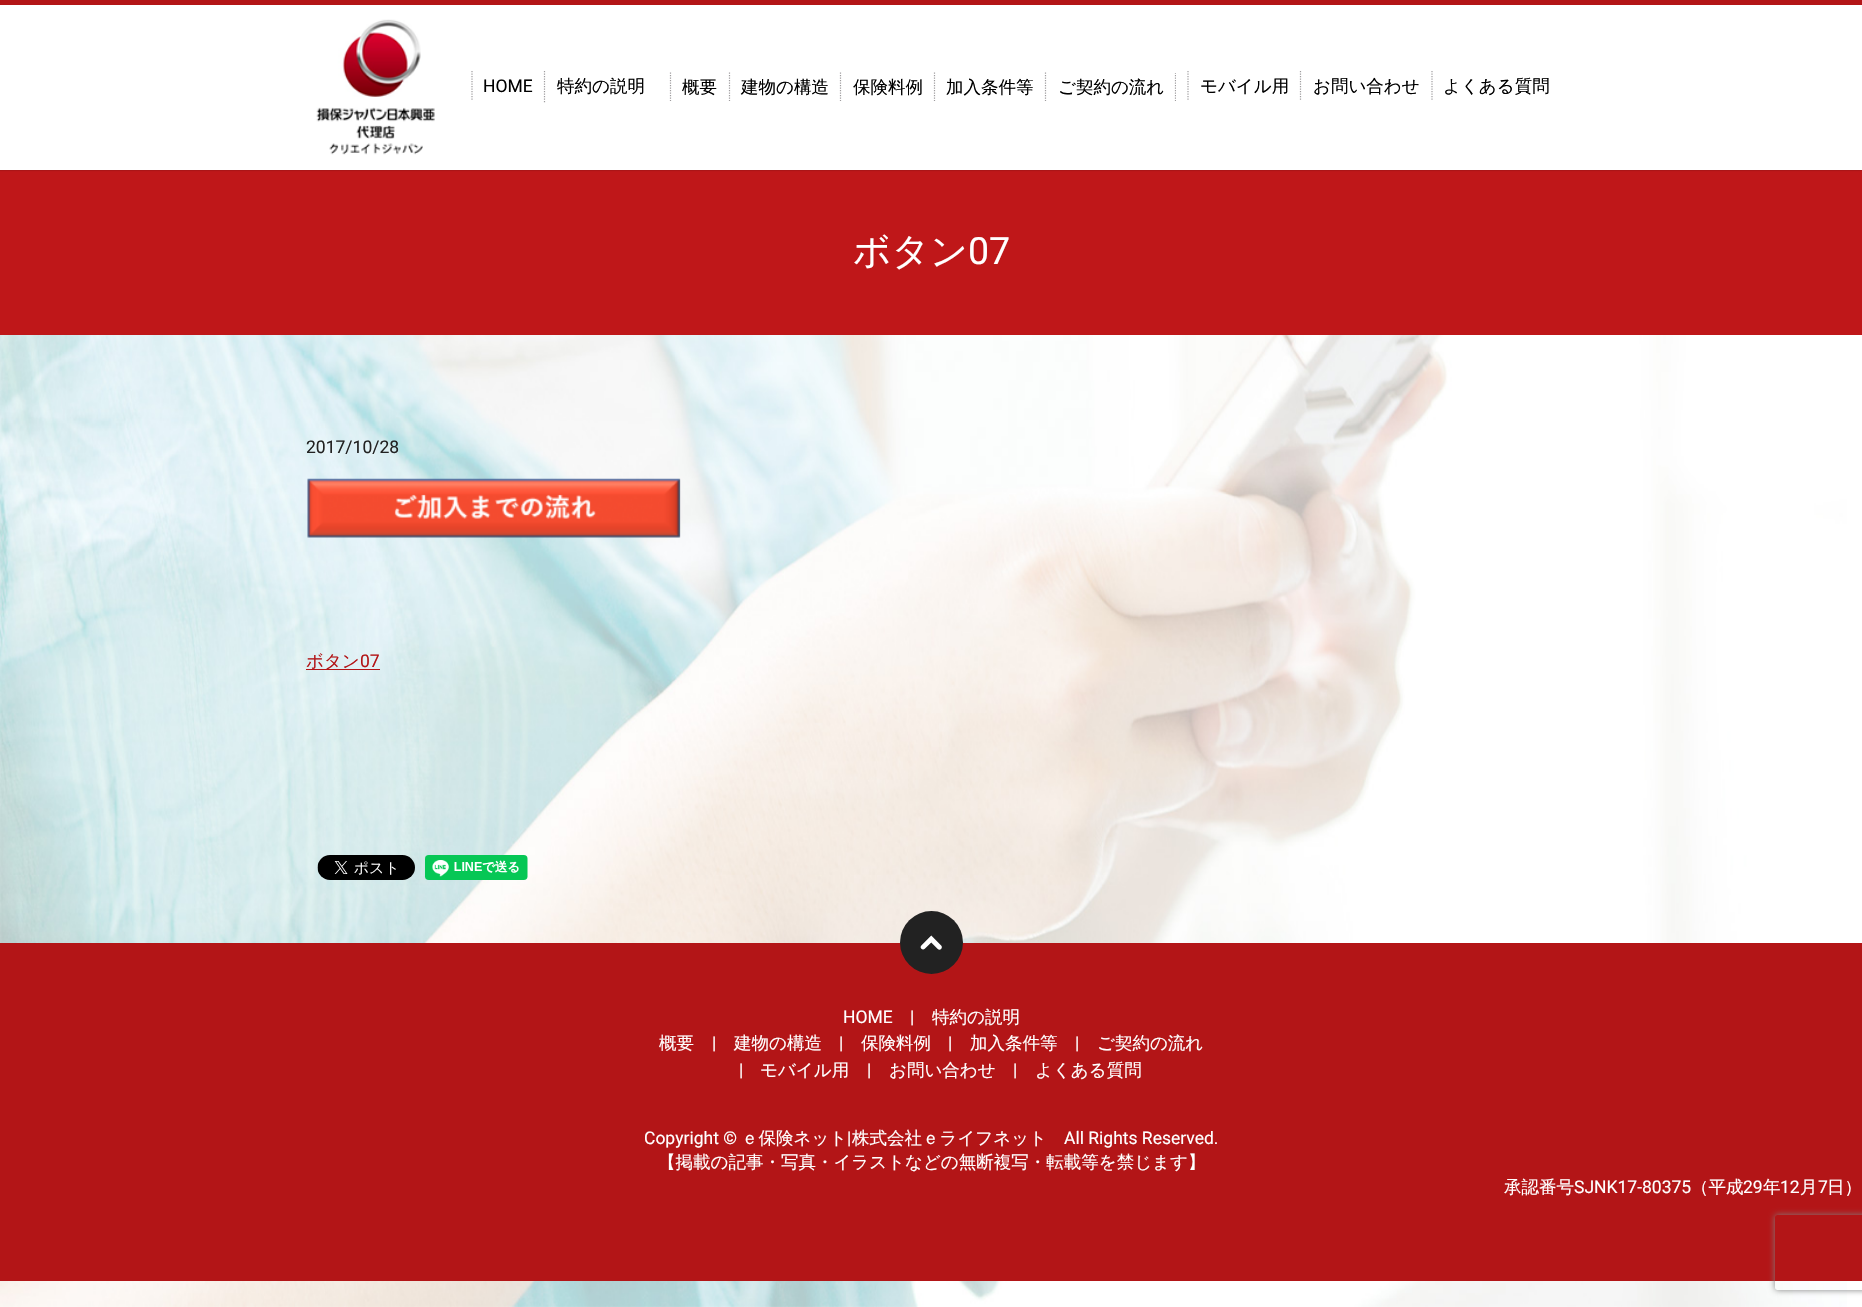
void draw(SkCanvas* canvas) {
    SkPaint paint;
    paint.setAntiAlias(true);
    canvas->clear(0xFFFFFFFF);
    paint.setColor(0xFFBF1719);
    canvas->drawRect(SkRect::MakeXYWH(0, 170, 1862, 165), paint);
    paint.setColor(0x1A000000);
    paint.setMaskFilter(SkMaskFilter::MakeBlur(kNormal_SkBlurStyle, 0.5f));
    canvas->drawRect(SkRect::MakeXYWH(0, 1, 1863, 170), paint);
    paint.setMaskFilter(nullptr);
    paint.setColor(0xFFB31517);
    canvas->drawRect(SkRect::MakeXYWH(0, 0, 1862, 5), paint);
    paint.setColor(0xFFFFFFFF);
    canvas->drawRect(SkRect::MakeXYWH(0, 5, 1862, 165), paint);
    canvas->drawImageRect(SkImages::DeferredFromEncodedData(SkData::MakeFromFileName("img1.png")), SkRect::MakeXYWH(316, 19, 119, 136), SkSamplingOptions());
    paint.setStyle(SkPaint::kStroke_Style);
    paint.setStrokeWidth(1.2f);
    paint.setColor(0xFF9E9C9E);
    paint.setPathEffect(SkDashPathEffect::Make({{1.25f, 1.25f}}, 0));
    canvas->drawPath(SkPathBuilder().moveTo(472, 71).lineTo(472, 100).detach(), paint);
    paint.setPathEffect(nullptr);
    SkFont font1(fontMgr->matchFamilyStyle("Roboto", SkFontStyle::Normal()), 17.5f);
    font1.setSubpixel(true);
    paint.setStyle(SkPaint::kFill_Style);
    paint.setColor(0xFF000000);
    canvas->drawString("HOME", 483, 92, font1, paint);
    paint.setStyle(SkPaint::kStroke_Style);
    paint.setColor(0xFF9E9C9E);
    paint.setPathEffect(SkDashPathEffect::Make({{1.25f, 1.25f}}, 0));
    canvas->drawPath(SkPathBuilder().moveTo(544.5f, 71).lineTo(544.5f, 102.5f).detach(), paint);
    paint.setPathEffect(nullptr);
    SkFont font2(fontMgr->matchFamilyStyle("WenQuanYi Zen Hei", SkFontStyle(500, SkFontStyle::kNormal_Width, SkFontStyle::kUpright_Slant)), 17.5f);
    font2.setSubpixel(true);
    paint.setStyle(SkPaint::kFill_Style);
    paint.setColor(0xFF000000);
    canvas->drawString("特約の説明", 557, 92, font2, paint);
    paint.setStyle(SkPaint::kStroke_Style);
    paint.setColor(0xFF9E9C9E);
    paint.setPathEffect(SkDashPathEffect::Make({{1.25f, 1.25f}}, 0));
    canvas->drawPath(SkPathBuilder().moveTo(670.5f, 72.5f).lineTo(670.5f, 101).detach(), paint);
    paint.setPathEffect(nullptr);
    paint.setStyle(SkPaint::kFill_Style);
    paint.setColor(0xFF000000);
    canvas->drawString("概要", 682, 93, font2, paint);
    paint.setStyle(SkPaint::kStroke_Style);
    paint.setColor(0xFF9E9C9E);
    paint.setPathEffect(SkDashPathEffect::Make({{1.25f, 1.25f}}, 0));
    canvas->drawPath(SkPathBuilder().moveTo(729.5f, 72.5f).lineTo(729.5f, 101).detach(), paint);
    paint.setPathEffect(nullptr);
    paint.setStyle(SkPaint::kFill_Style);
    paint.setColor(0xFF000000);
    canvas->drawString("建物の構造", 741, 93, font2, paint);
    paint.setStyle(SkPaint::kStroke_Style);
    paint.setColor(0xFF9E9C9E);
    paint.setPathEffect(SkDashPathEffect::Make({{1.25f, 1.25f}}, 0));
    canvas->drawPath(SkPathBuilder().moveTo(840.5f, 72.5f).lineTo(840.5f, 101).detach(), paint);
    paint.setPathEffect(nullptr);
    paint.setStyle(SkPaint::kFill_Style);
    paint.setColor(0xFF000000);
    canvas->drawString("保険料例", 853, 93, font2, paint);
    paint.setStyle(SkPaint::kStroke_Style);
    paint.setColor(0xFF9E9C9E);
    paint.setPathEffect(SkDashPathEffect::Make({{1.25f, 1.25f}}, 0));
    canvas->drawPath(SkPathBuilder().moveTo(934.5f, 72.5f).lineTo(934.5f, 101).detach(), paint);
    paint.setPathEffect(nullptr);
    paint.setStyle(SkPaint::kFill_Style);
    paint.setColor(0xFF000000);
    canvas->drawString("加入条件等", 946, 93, font2, paint);
    canvas->save();
    canvas->clipRect(SkRect::MakeXYWH(645, 73, 531, 28));
    paint.setStyle(SkPaint::kStroke_Style);
    paint.setColor(0xFF9E9C9E);
    paint.setPathEffect(SkDashPathEffect::Make({{1.25f, 1.25f}}, 0));
    canvas->drawPath(SkPathBuilder().moveTo(1175.5f, 72.5f).lineTo(1175.5f, 101).detach(), paint);
    paint.setPathEffect(nullptr);
    canvas->restore();
    paint.setPathEffect(SkDashPathEffect::Make({{1.25f, 1.25f}}, 0));
    canvas->drawPath(SkPathBuilder().moveTo(1045.5f, 72.5f).lineTo(1045.5f, 101).detach(), paint);
    paint.setPathEffect(nullptr);
    paint.setStyle(SkPaint::kFill_Style);
    paint.setColor(0xFF000000);
    canvas->drawString("ご契約の流れ", 1058, 93, font2, paint);
    paint.setStyle(SkPaint::kStroke_Style);
    paint.setColor(0xFF9E9C9E);
    paint.setPathEffect(SkDashPathEffect::Make({{1.25f, 1.25f}}, 0));
    canvas->drawPath(SkPathBuilder().moveTo(1188, 71).lineTo(1188, 100).detach(), paint);
    paint.setPathEffect(nullptr);
    paint.setStyle(SkPaint::kFill_Style);
    paint.setColor(0xFF000000);
    canvas->drawString("モバイル用", 1200, 92, font2, paint);
    paint.setStyle(SkPaint::kStroke_Style);
    paint.setColor(0xFF9E9C9E);
    paint.setPathEffect(SkDashPathEffect::Make({{1.25f, 1.25f}}, 0));
    canvas->drawPath(SkPathBuilder().moveTo(1300.5f, 71).lineTo(1300.5f, 100).detach(), paint);
    paint.setPathEffect(nullptr);
    paint.setStyle(SkPaint::kFill_Style);
    paint.setColor(0xFF000000);
    canvas->drawString("お問い合わせ", 1313, 92, font2, paint);
    paint.setStyle(SkPaint::kStroke_Style);
    paint.setColor(0xFF9E9C9E);
    paint.setPathEffect(SkDashPathEffect::Make({{1.25f, 1.25f}}, 0));
    canvas->drawPath(SkPathBuilder().moveTo(1432, 71).lineTo(1432, 100).detach(), paint);
    paint.setPathEffect(nullptr);
    paint.setStyle(SkPaint::kFill_Style);
    paint.setColor(0xFF000000);
    canvas->drawString("よくある質問", 1443, 92, font2, paint);
    SkFont font3(fontMgr->matchFamilyStyle("WenQuanYi Zen Hei", SkFontStyle(500, SkFontStyle::kNormal_Width, SkFontStyle::kUpright_Slant)), 37.5f);
    font3.setSubpixel(true);
    paint.setColor(0xFFFFFFFF);
    canvas->drawString("ボタン", 853, 264, font3, paint);
    SkFont font4(fontMgr->matchFamilyStyle("Roboto", SkFontStyle::Normal()), 37.5f);
    font4.setSubpixel(true);
    canvas->drawString("07", 968, 264, font4, paint);
    canvas->drawImageRect(SkImages::DeferredFromEncodedData(SkData::MakeFromFileName("img3.png")), SkRect::MakeXYWH(0, 335, 1847, 972), SkSamplingOptions());
    paint.setColor(0xFF222222);
    canvas->drawString("2017/10/28", 306, 453, font1, paint);
    canvas->drawImageRect(SkImages::DeferredFromEncodedData(SkData::MakeFromFileName("img2.png")), SkRect::MakeXYWH(307, 478, 374, 60), SkSamplingOptions());
    paint.setColor(0xFFB31517);
    canvas->drawRect(SkRect::MakeXYWH(306, 669, 74, 1), paint);
    canvas->drawString("ボタン", 306, 667, font2, paint);
    canvas->drawString("07", 360, 667, font1, paint);
    canvas->drawImageRect(SkImages::DeferredFromEncodedData(SkData::MakeFromFileName("img4.png")), SkRect::MakeXYWH(317, 855, 98, 25), SkSamplingOptions());
    canvas->drawImageRect(SkImages::DeferredFromEncodedData(SkData::MakeFromFileName("img5.png")), SkRect::MakeXYWH(425, 855, 103, 25), SkSamplingOptions());
    canvas->drawRect(SkRect::MakeXYWH(0, 943, 1862, 338), paint);
    paint.setColor(0xFF222222);
    canvas->drawCircle(931.5f, 942.5f, 31.5f, paint);
    canvas->drawImageRect(SkImages::DeferredFromEncodedData(SkData::MakeFromFileName("img6.png")), SkRect::MakeXYWH(920, 935, 22, 15), SkSamplingOptions());
    paint.setColor(0xFFFFFFFF);
    canvas->drawString("|", 910, 1023, font1, paint);
    canvas->drawString("特約の説明", 932, 1023, font2, paint);
    canvas->drawString("概要", 659, 1049, font2, paint);
    canvas->drawString("|", 712, 1049, font1, paint);
    canvas->drawString("建物の構造", 734, 1049, font2, paint);
    canvas->drawString("|", 839, 1049, font1, paint);
    canvas->drawString("保険料例", 861, 1049, font2, paint);
    canvas->drawString("|", 948, 1049, font1, paint);
    canvas->drawString("加入条件等", 970, 1049, font2, paint);
    canvas->drawString("|", 1075, 1049, font1, paint);
    canvas->drawString("ご契約の流れ", 1097, 1049, font2, paint);
    canvas->drawString("HOME", 843, 1023, font1, paint);
    canvas->drawString("|", 739, 1076, font1, paint);
    canvas->drawString("モバイル用", 760, 1076, font2, paint);
    canvas->drawString("|", 867, 1076, font1, paint);
    canvas->drawString("お問い合わせ", 889, 1076, font2, paint);
    canvas->drawString("|", 1013, 1076, font1, paint);
    canvas->drawString("よくある質問", 1035, 1076, font2, paint);
    canvas->drawString("Copyright ©", 644, 1144, font1, paint);
    canvas->drawString("ｅ保険ネット", 741, 1144, font2, paint);
    canvas->drawString("|", 847, 1144, font1, paint);
    canvas->drawString("株式会社ｅライフネット", 852, 1144, font2, paint);
    canvas->drawString("All Rights Reserved.", 1064, 1144, font1, paint);
    canvas->drawString("【掲載の記事・写真・イラストなどの無断複写・転載等を禁じます】", 658, 1168, font2, paint);
    canvas->drawString("承認番号", 1504, 1193, font2, paint);
    canvas->drawString("SJNK17-80375", 1574, 1193, font1, paint);
    canvas->drawString("（平成", 1691, 1193, font2, paint);
    canvas->drawString("29", 1743, 1193, font1, paint);
    canvas->drawString("年", 1763, 1193, font2, paint);
    canvas->drawString("12", 1780, 1193, font1, paint);
    canvas->drawString("月", 1800, 1193, font2, paint);
    canvas->drawString("7", 1818, 1193, font1, paint);
    canvas->drawString("日）", 1827, 1193, font2, paint);
    canvas->save();
    canvas->clipPath(SkPathBuilder(SkPathFillType::kEvenOdd).moveTo(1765, 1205).lineTo(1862, 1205).lineTo(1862, 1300).lineTo(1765, 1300).close().moveTo(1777.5f, 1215).lineTo(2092.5f, 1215).cubicTo(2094, 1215, 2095, 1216, 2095, 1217.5f).lineTo(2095, 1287.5f).cubicTo(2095, 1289, 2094, 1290, 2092.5f, 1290).lineTo(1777.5f, 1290).cubicTo(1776, 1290, 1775, 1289, 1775, 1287.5f).lineTo(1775, 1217.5f).cubicTo(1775, 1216, 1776, 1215, 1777.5f, 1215).close().detach(), true);
    paint.setColor(0xFF808080);
    paint.setMaskFilter(SkMaskFilter::MakeBlur(kNormal_SkBlurStyle, 3));
    canvas->drawRoundRect(SkRect::MakeXYWH(1775, 1215, 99, 75), 2.5f, 2.5f, paint);
    paint.setMaskFilter(nullptr);
    canvas->restore();
}
